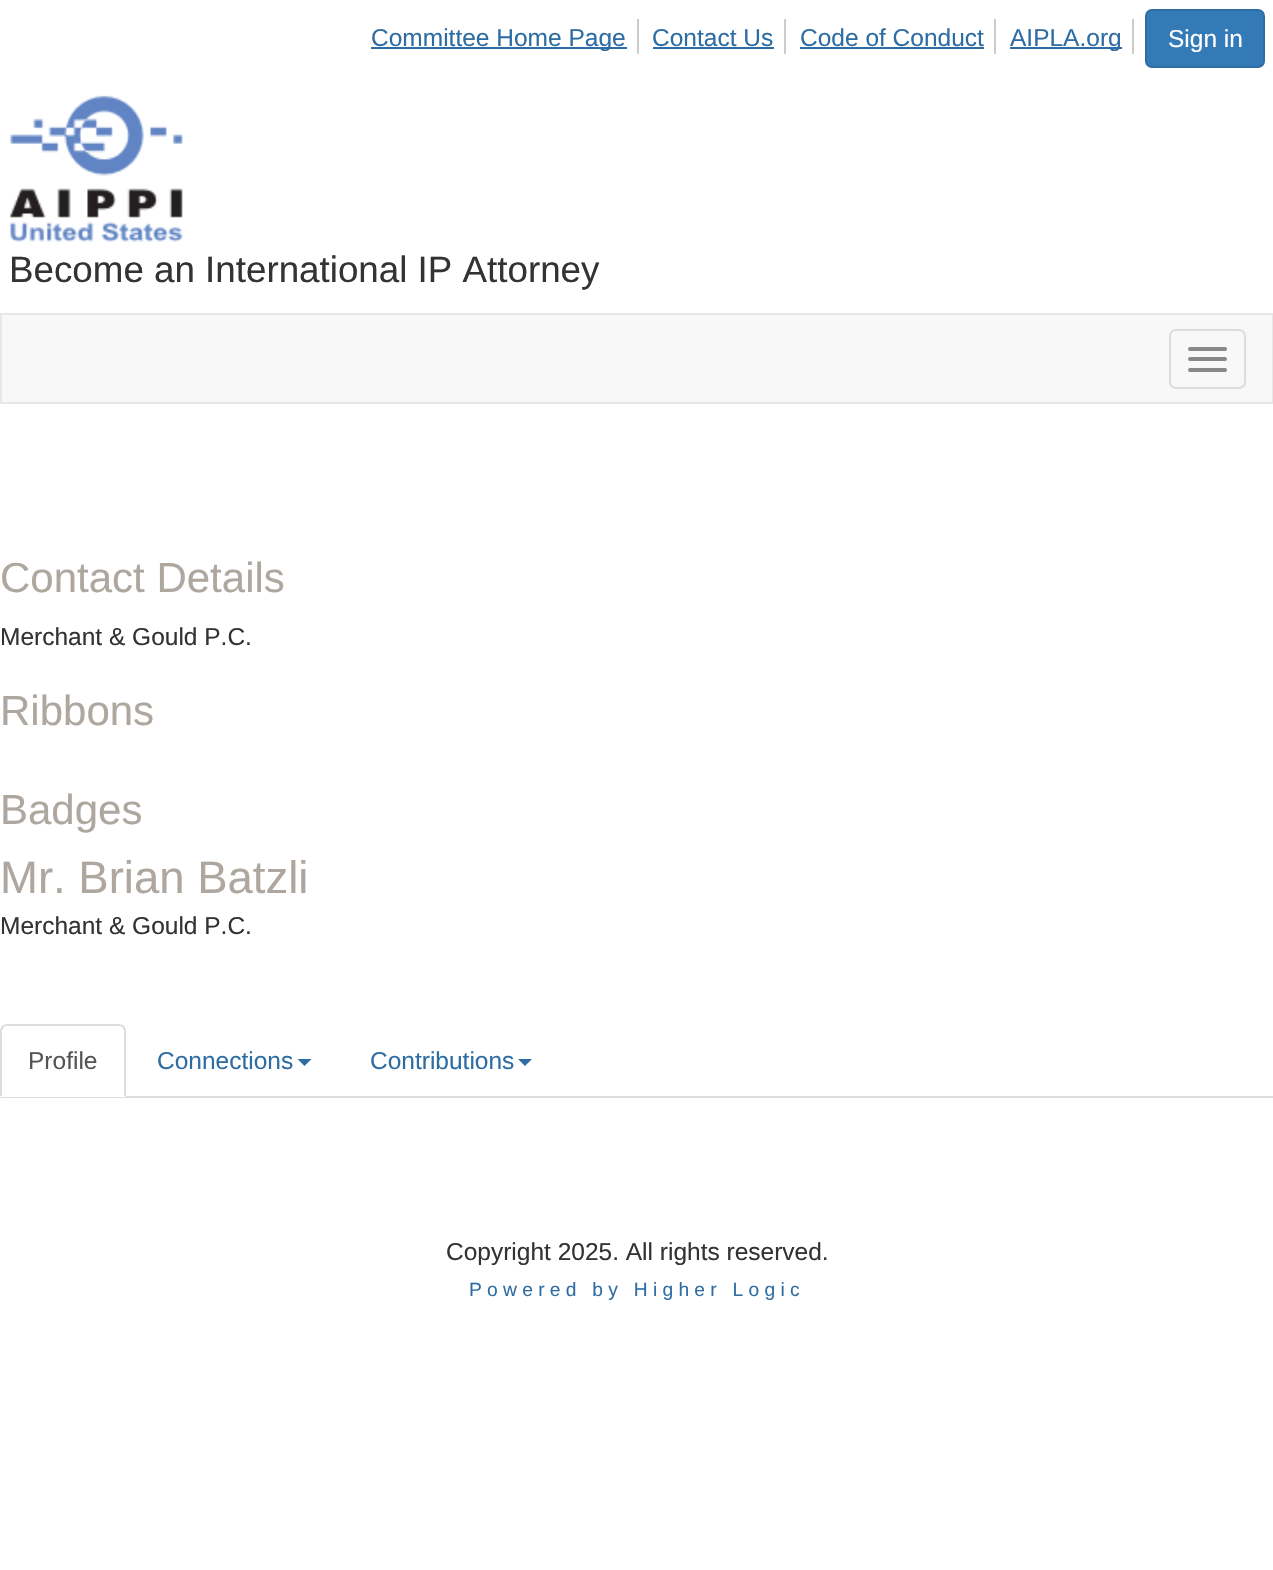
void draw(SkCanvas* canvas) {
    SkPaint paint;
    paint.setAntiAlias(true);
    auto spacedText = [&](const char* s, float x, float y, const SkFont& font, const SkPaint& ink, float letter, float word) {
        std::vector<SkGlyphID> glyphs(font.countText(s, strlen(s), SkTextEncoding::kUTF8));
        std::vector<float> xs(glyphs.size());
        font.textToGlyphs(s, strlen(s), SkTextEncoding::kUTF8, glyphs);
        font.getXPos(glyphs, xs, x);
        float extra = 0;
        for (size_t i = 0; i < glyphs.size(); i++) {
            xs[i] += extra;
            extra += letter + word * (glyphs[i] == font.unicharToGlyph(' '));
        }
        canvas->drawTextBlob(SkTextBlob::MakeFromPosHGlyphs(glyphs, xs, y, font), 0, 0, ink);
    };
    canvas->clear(0xFFFFFFFF);
    paint.setColor(0xFFCCCCCC);
    canvas->drawRect(SkRect::MakeXYWH(637, 19, 2, 35), paint);
    paint.setColor(0xFF2E6DA4);
    canvas->drawRect(SkRect::MakeXYWH(371, 47, 256, 2), paint);
    SkFont font1(fontMgr->matchFamilyStyle("Liberation Sans", SkFontStyle::Normal()), 24.5f);
    font1.setSubpixel(true);
    canvas->drawString("Committee Home Page", 371, 46, font1, paint);
    paint.setColor(0xFFCCCCCC);
    canvas->drawRect(SkRect::MakeXYWH(784, 19, 2, 35), paint);
    paint.setColor(0xFF2E6DA4);
    canvas->drawString("Contact Us", 652, 46, font1, paint);
    canvas->drawRect(SkRect::MakeXYWH(653, 47, 121, 2), paint);
    paint.setColor(0xFFCCCCCC);
    canvas->drawRect(SkRect::MakeXYWH(994, 19, 2, 35), paint);
    paint.setColor(0xFF2E6DA4);
    canvas->drawString("Code of Conduct", 800, 46, font1, paint);
    canvas->drawRect(SkRect::MakeXYWH(800, 47, 184, 2), paint);
    paint.setColor(0xFFCCCCCC);
    canvas->drawRect(SkRect::MakeXYWH(1132, 19, 2, 35), paint);
    paint.setColor(0xFF2E6DA4);
    canvas->drawRect(SkRect::MakeXYWH(1010, 47, 112, 2), paint);
    canvas->drawString("AIPLA.org", 1010, 46, font1, paint);
    paint.setColor(0xFF337AB7);
    canvas->drawRoundRect(SkRect::MakeXYWH(1146, 10, 118, 57), 6, 6, paint);
    paint.setStyle(SkPaint::kStroke_Style);
    paint.setStrokeWidth(2);
    paint.setColor(0xFF2E6DA4);
    canvas->drawRoundRect(SkRect::MakeXYWH(1146, 10, 118, 57), 6, 6, paint);
    paint.setStyle(SkPaint::kFill_Style);
    paint.setColor(0xFFFFFFFF);
    canvas->drawString("Sign in", 1168, 47, font1, paint);
    canvas->drawImageRect(SkImages::DeferredFromEncodedData(SkData::MakeFromFileName("img1.png")), SkRect::MakeXYWH(10, 95, 173, 147), SkSamplingOptions());
    SkFont font2(fontMgr->matchFamilyStyle("Liberation Sans", SkFontStyle::Normal()), 36.75f);
    font2.setSubpixel(true);
    paint.setColor(0xFF333333);
    canvas->drawString("Become an International IP Attorney", 9, 282, font2, paint);
    paint.setColor(0xFFF8F8F8);
    canvas->drawRect(SkRect::MakeXYWH(1, 314, 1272, 89), paint);
    paint.setStyle(SkPaint::kStroke_Style);
    paint.setColor(0xFFE7E7E7);
    canvas->drawRect(SkRect::MakeXYWH(1, 314, 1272, 89), paint);
    paint.setColor(0xFFDDDDDD);
    canvas->drawRoundRect(SkRect::MakeXYWH(1170, 330, 75, 58), 6, 6, paint);
    paint.setStyle(SkPaint::kFill_Style);
    paint.setColor(0xFF888888);
    canvas->drawRoundRect(SkRect::MakeXYWH(1188, 347, 39, 4), 2, 2, paint);
    canvas->drawRoundRect(SkRect::MakeXYWH(1188, 357, 39, 4), 2, 2, paint);
    canvas->drawRoundRect(SkRect::MakeXYWH(1188, 368, 39, 4), 2, 2, paint);
    SkFont font3(fontMgr->matchFamilyStyle("Liberation Sans", SkFontStyle::Normal()), 42);
    font3.setSubpixel(true);
    paint.setColor(0xFFAEA79F);
    canvas->drawString("Contact Details", 0, 592, font3, paint);
    paint.setColor(0xFF333333);
    canvas->drawString("Merchant & Gould P.C.", 0, 645, font1, paint);
    paint.setColor(0xFFAEA79F);
    canvas->drawString("Ribbons", 0, 725, font3, paint);
    canvas->drawString("Badges", 0, 824, font3, paint);
    SkFont font4(fontMgr->matchFamilyStyle("Liberation Sans", SkFontStyle::Normal()), 45.5f);
    font4.setSubpixel(true);
    canvas->drawString("Mr. Brian Batzli", 0, 893, font4, paint);
    paint.setColor(0xFF333333);
    canvas->drawString("Merchant & Gould P.C.", 0, 934, font1, paint);
    paint.setColor(0xFFDDDDDD);
    canvas->drawRect(SkRect::MakeXYWH(0, 1096, 1273, 2), paint);
    paint.setColor(0xFFFFFFFF);
    canvas->drawPath(SkPathBuilder().moveTo(7, 1024).lineTo(119, 1024).cubicTo(123, 1024, 126, 1027, 126, 1031).lineTo(126, 1097).lineTo(0, 1097).lineTo(0, 1031).cubicTo(0, 1027, 3, 1024, 7, 1024).close().detach(), paint);
    paint.setColor(0xFFDDDDDD);
    canvas->drawPath(SkPathBuilder().moveTo(7, 1024).cubicTo(5, 1024, 3, 1025, 2, 1026).lineTo(4, 1027).lineTo(6, 1026).lineTo(120, 1026).lineTo(122, 1027).lineTo(124, 1026).cubicTo(123, 1025, 121, 1024, 119, 1024).close().detach(), paint);
    canvas->drawPath(SkPathBuilder().moveTo(124, 1026).cubicTo(125, 1027, 126, 1029, 126, 1031).lineTo(126, 1097).lineTo(124, 1095).lineTo(124, 1030).lineTo(122, 1027).close().detach(), paint);
    canvas->drawPath(SkPathBuilder().moveTo(0, 1031).lineTo(0, 1097).lineTo(2, 1095).lineTo(2, 1030).lineTo(4, 1027).lineTo(2, 1026).cubicTo(1, 1027, 0, 1029, 0, 1031).close().detach(), paint);
    paint.setColor(0xFF555555);
    canvas->drawString("Profile", 28, 1069, font1, paint);
    paint.setColor(0xFF2E6DA4);
    canvas->drawString("Connections", 157, 1069, font1, paint);
    canvas->drawPath(SkPathBuilder().moveTo(297.5f, 1059).lineTo(311.5f, 1059).lineTo(304.5f, 1066).close().detach(), paint);
    canvas->drawString("Contributions", 370, 1069, font1, paint);
    canvas->drawPath(SkPathBuilder().moveTo(518, 1059).lineTo(532, 1059).lineTo(525, 1066).close().detach(), paint);
    paint.setColor(0xFF333333);
    canvas->drawString("Copyright 2025. All rights reserved.", 446, 1260, font1, paint);
    SkFont font5(fontMgr->matchFamilyStyle("Liberation Sans", SkFontStyle::Normal()), 19.25f);
    font5.setSubpixel(true);
    paint.setColor(0xFF2E6DA4);
    spacedText("Powered by Higher Logic", 469, 1296, font5, paint, 5.25f, 0);
}
